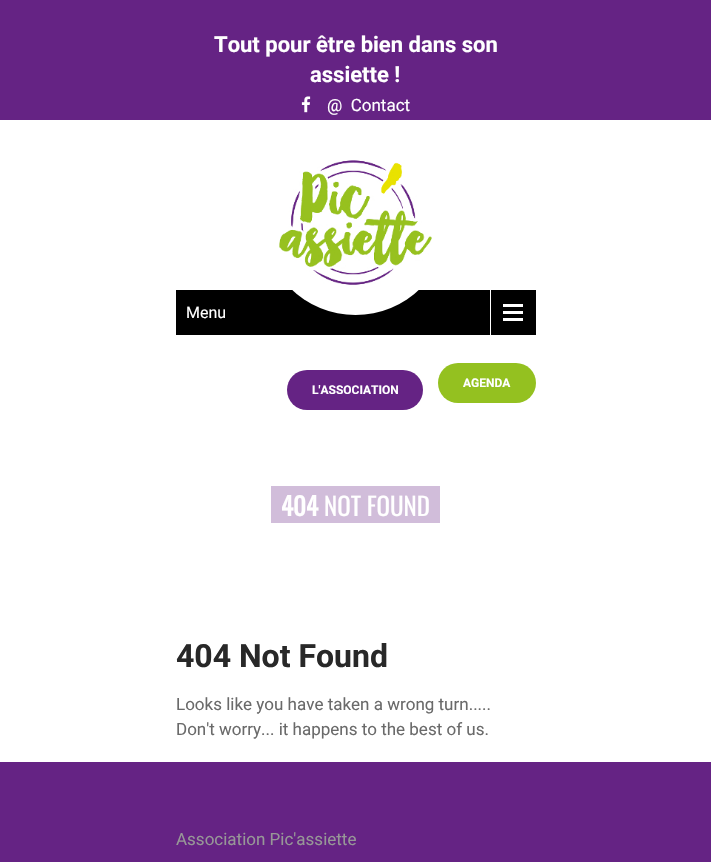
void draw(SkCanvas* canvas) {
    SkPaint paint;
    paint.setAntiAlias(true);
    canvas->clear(0xFFFFFFFF);
    paint.setColor(0xFF652384);
    canvas->drawRect(SkRect::MakeXYWH(0, 0, 711, 120), paint);
    SkFont font1(fontMgr->matchFamilyStyle("Roboto", SkFontStyle::Bold()), 22);
    font1.setSubpixel(true);
    paint.setColor(0xFFFFFFFF);
    canvas->drawString("Tout pour être bien dans son", 214, 52, font1, paint);
    canvas->drawString("assiette !", 310, 82, font1, paint);
    canvas->drawImageRect(SkImages::DeferredFromEncodedData(SkData::MakeFromFileName("img1.png")), SkRect::MakeXYWH(301, 96, 10, 17), SkSamplingOptions());
    SkFont font2(fontMgr->matchFamilyStyle("Roboto", SkFontStyle::Normal()), 17);
    font2.setSubpixel(true);
    canvas->drawString("@  Contact", 327, 111, font2, paint);
    paint.setColor(0xFF000000);
    canvas->drawRect(SkRect::MakeXYWH(176, 290, 360, 45), paint);
    canvas->drawImageRect(SkImages::DeferredFromEncodedData(SkData::MakeFromFileName("img2.png")), SkRect::MakeXYWH(279, 160, 153, 155), SkSamplingOptions());
    canvas->drawImageRect(SkImages::DeferredFromEncodedData(SkData::MakeFromFileName("img3.png")), SkRect::MakeXYWH(490, 290, 33, 45), SkSamplingOptions());
    SkFont font3(fontMgr->matchFamilyStyle("Roboto", SkFontStyle::Normal()), 16);
    font3.setSubpixel(true);
    paint.setColor(0xFFFFFFFF);
    canvas->drawString("Menu", 186, 318, font3, paint);
    paint.setColor(0xFF94C120);
    canvas->drawRoundRect(SkRect::MakeXYWH(438, 363, 98, 40), 20, 20, paint);
    SkFont font4(fontMgr->matchFamilyStyle("Roboto", SkFontStyle::Bold()), 12);
    font4.setSubpixel(true);
    paint.setColor(0xFFFFFFFF);
    canvas->drawString("AGENDA", 463, 387, font4, paint);
    paint.setColor(0xFF652384);
    canvas->drawRoundRect(SkRect::MakeXYWH(287, 370, 136, 40), 20, 20, paint);
    paint.setColor(0xFFFFFFFF);
    canvas->drawString("L'ASSOCIATION", 312, 394, font4, paint);
    paint.setColor(0xFFD1BDDA);
    canvas->drawRect(SkRect::MakeXYWH(271, 486, 169, 37), paint);
    SkFont font5(fontMgr->matchFamilyStyle("Oswald", SkFontStyle::Bold()), 25);
    font5.setSubpixel(true);
    paint.setColor(0xFFFFFFFF);
    canvas->drawString("404", 281, 516, font5, paint);
    SkFont font6(fontMgr->matchFamilyStyle("Oswald", SkFontStyle::Normal()), 25);
    font6.setSubpixel(true);
    canvas->drawString("NOT FOUND", 324, 516, font6, paint);
    SkFont font7(fontMgr->matchFamilyStyle("Roboto", SkFontStyle::Bold()), 32);
    font7.setSubpixel(true);
    paint.setColor(0xFF282828);
    canvas->drawString("404 Not Found", 176, 667, font7, paint);
    paint.setColor(0xFF6A6A6A);
    canvas->drawString("Looks like you have taken a wrong turn.....", 176, 710, font2, paint);
    canvas->drawString("Don't worry... it happens to the best of us.", 176, 735, font2, paint);
    paint.setColor(0xFF652384);
    canvas->drawRect(SkRect::MakeXYWH(0, 762, 711, 100), paint);
    paint.setColor(0xFF979797);
    canvas->drawString("Association Pic'assiette", 176, 845, font2, paint);
}
